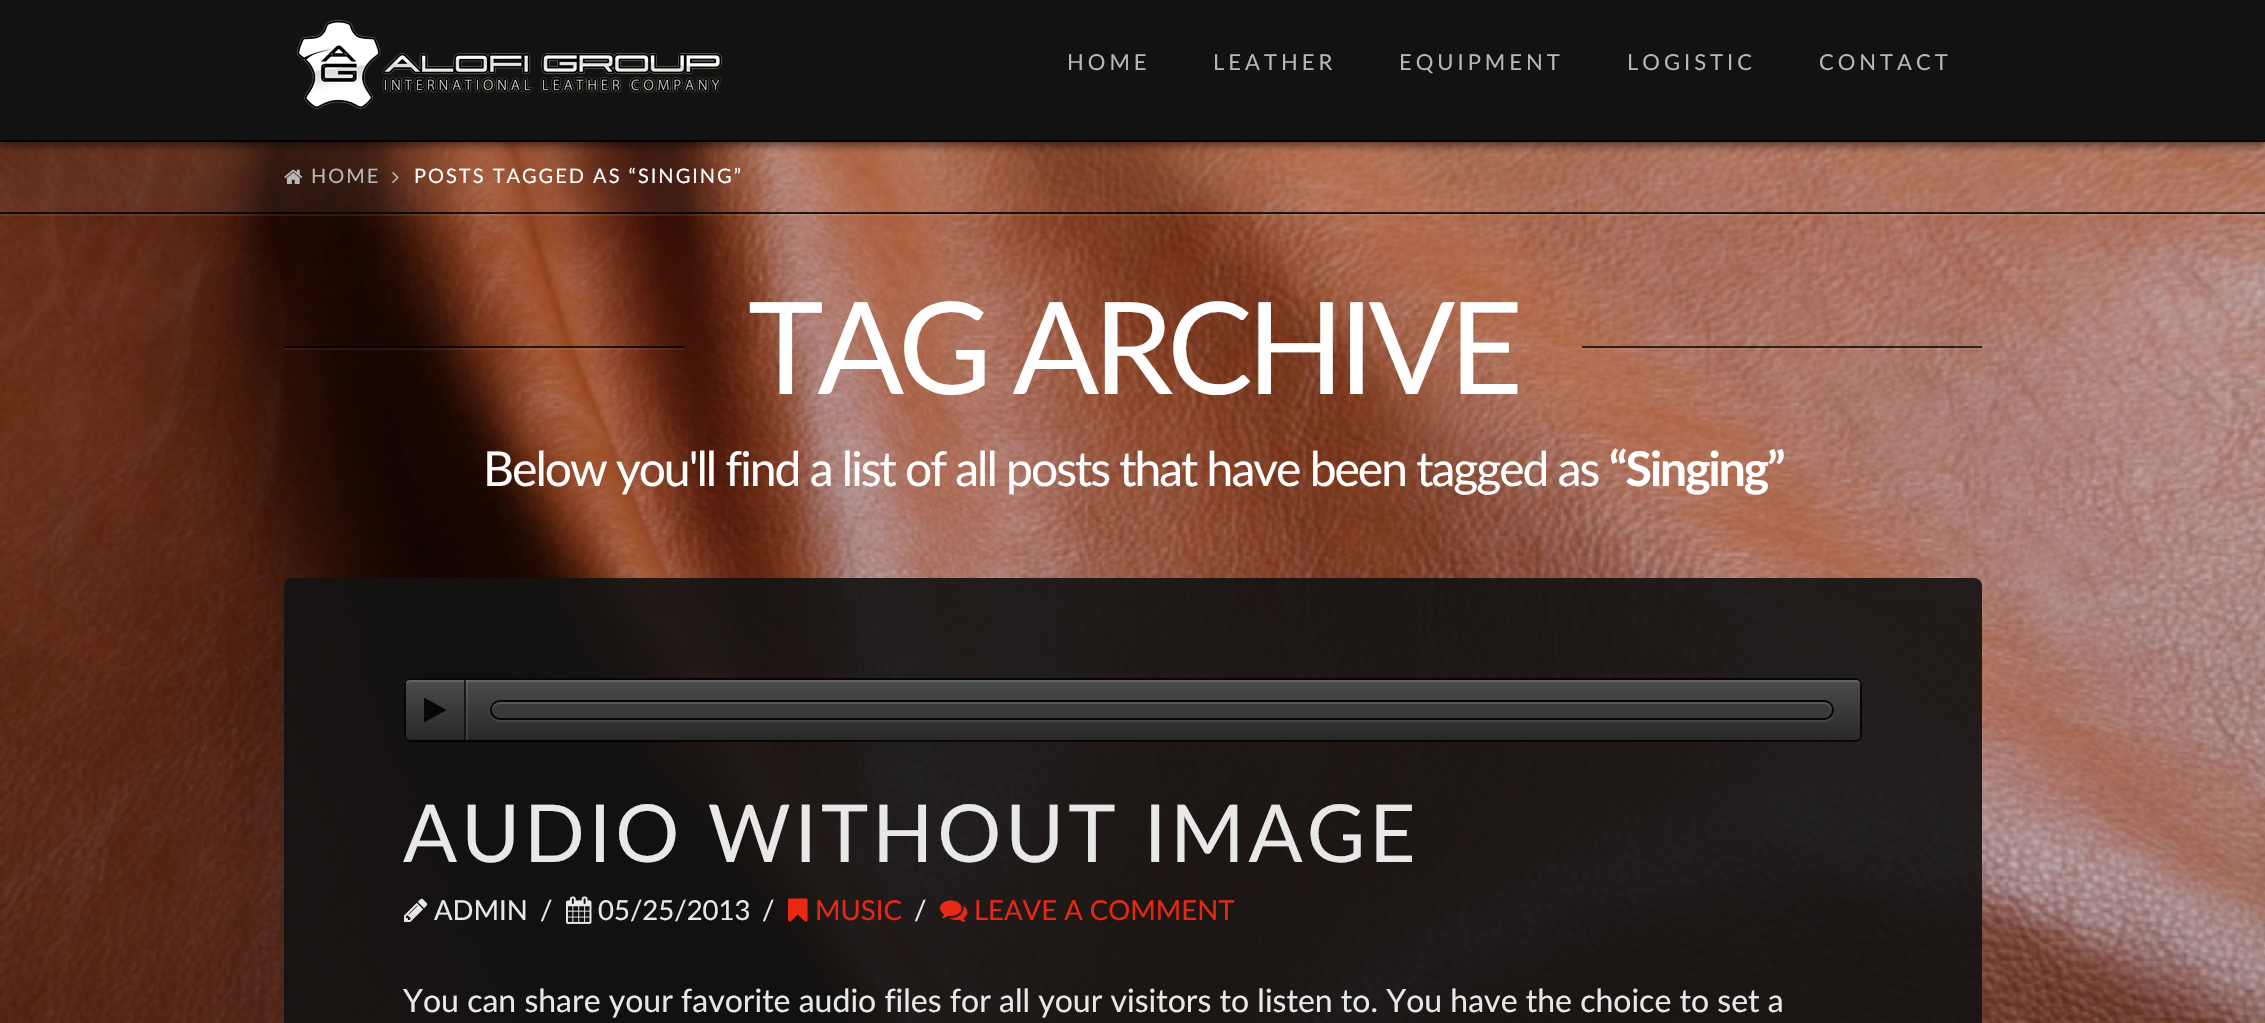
void draw(SkCanvas* canvas) {
    SkPaint paint;
    paint.setAntiAlias(true);
    auto spacedText = [&](const char* s, float x, float y, const SkFont& font, const SkPaint& ink, float letter, float word) {
        std::vector<SkGlyphID> glyphs(font.countText(s, strlen(s), SkTextEncoding::kUTF8));
        std::vector<float> xs(glyphs.size());
        font.textToGlyphs(s, strlen(s), SkTextEncoding::kUTF8, glyphs);
        font.getXPos(glyphs, xs, x);
        float extra = 0;
        for (size_t i = 0; i < glyphs.size(); i++) {
            xs[i] += extra;
            extra += letter + word * (glyphs[i] == font.unicharToGlyph(' '));
        }
        canvas->drawTextBlob(SkTextBlob::MakeFromPosHGlyphs(glyphs, xs, y, font), 0, 0, ink);
    };
    canvas->clear(0xFFFFFFFF);
    canvas->drawImageRect(SkImages::DeferredFromEncodedData(SkData::MakeFromFileName("img9.png")), SkRect::MakeXYWH(0, 142, 2265, 881), SkSamplingOptions());
    paint.setColor(0x0DFFFFFF);
    canvas->drawRect(SkRect::MakeXYWH(0, 142, 2265, 72), paint);
    paint.setColor(0x78000000);
    paint.setMaskFilter(SkMaskFilter::MakeBlur(kNormal_SkBlurStyle, 4));
    canvas->drawRect(SkRect::MakeXYWH(0, 4, 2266, 142), paint);
    paint.setMaskFilter(nullptr);
    paint.setColor(0xFF121212);
    canvas->drawRect(SkRect::MakeXYWH(0, 0, 2265, 140), paint);
    paint.setColor(0xFF000000);
    canvas->drawRect(SkRect::MakeXYWH(0, 140, 2265, 2), paint);
    canvas->drawImageRect(SkImages::DeferredFromEncodedData(SkData::MakeFromFileName("img1.png")), SkRect::MakeXYWH(297, 20, 425, 89), SkSamplingOptions());
    SkFont font1(fontMgr->matchFamilyStyle("Lato", SkFontStyle::Normal()), 22);
    font1.setSubpixel(true);
    paint.setColor(0xFFB7B7B7);
    spacedText("HOME", 1067, 70, font1, paint, 4, 0);
    spacedText("LEATHER", 1213, 70, font1, paint, 4, 0);
    spacedText("EQUIPMENT", 1399, 70, font1, paint, 4, 0);
    spacedText("LOGISTIC", 1627, 70, font1, paint, 4, 0);
    spacedText("CONTACT", 1819, 70, font1, paint, 4, 0);
    paint.setColor(0x12FFFFFF);
    canvas->drawRect(SkRect::MakeXYWH(0, 214, 2265, 2), paint);
    paint.setColor(0xD1000000);
    canvas->drawRect(SkRect::MakeXYWH(0, 212, 2265, 2), paint);
    canvas->drawImageRect(SkImages::DeferredFromEncodedData(SkData::MakeFromFileName("img2.png")), SkRect::MakeXYWH(284, 169, 19, 15), SkSamplingOptions());
    SkFont font2(fontMgr->matchFamilyStyle("Lato", SkFontStyle::Normal()), 20);
    font2.setSubpixel(true);
    paint.setColor(0xFFB7B7B7);
    spacedText("HOME", 311, 183, font2, paint, 2, 0);
    canvas->drawImageRect(SkImages::DeferredFromEncodedData(SkData::MakeFromFileName("img3.png")), SkRect::MakeXYWH(392, 172, 7, 12), SkSamplingOptions());
    paint.setColor(0xFFFFFFFF);
    spacedText("POSTS TAGGED AS “SINGING”", 414, 183, font2, paint, 2, 0);
    paint.setColor(0x0FFFFFFF);
    canvas->drawRect(SkRect::MakeXYWH(284, 348, 400, 2), paint);
    paint.setColor(0xBF000000);
    canvas->drawRect(SkRect::MakeXYWH(284, 346, 400, 2), paint);
    SkFont font3(fontMgr->matchFamilyStyle("Lato", SkFontStyle::Normal()), 128);
    font3.setSubpixel(true);
    paint.setColor(0xFFFFFFFF);
    spacedText("TAG ARCHIVE", 748, 394, font3, paint, -6, 0);
    paint.setColor(0x0FFFFFFF);
    canvas->drawRect(SkRect::MakeXYWH(1582, 348, 400, 2), paint);
    paint.setColor(0xBF000000);
    canvas->drawRect(SkRect::MakeXYWH(1582, 346, 400, 2), paint);
    SkFont font4(fontMgr->matchFamilyStyle("Lato", SkFontStyle::Normal()), 48);
    font4.setSubpixel(true);
    paint.setColor(0xFFFFFFFF);
    spacedText("Below you'll find a list of all posts that have been tagged as", 483, 486, font4, paint, -2, 0);
    SkFont font5(fontMgr->matchFamilyStyle("Lato", SkFontStyle::Bold()), 48);
    font5.setSubpixel(true);
    spacedText("“Singing”", 1609, 486, font5, paint, -2, 0);
    paint.setColor(0xE6121212);
    canvas->drawRoundRect(SkRect::MakeXYWH(284, 578, 1698, 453), 8, 8, paint);
    paint.setColor(0xE63D3D3D);
    canvas->drawRoundRect(SkRect::MakeXYWH(404, 678, 1458, 64), 6, 6, paint);
    canvas->save();
    canvas->clipPath(SkPathBuilder().moveTo(410, 678).lineTo(1856, 678).cubicTo(1859.5f, 678, 1862, 680.5f, 1862, 684).lineTo(1862, 736).cubicTo(1862, 739.5f, 1859.5f, 742, 1856, 742).lineTo(410, 742).cubicTo(406.5f, 742, 404, 739.5f, 404, 736).lineTo(404, 684).cubicTo(404, 680.5f, 406.5f, 678, 410, 678).close().detach(), true);
    {
        const SkColor colors[] = {0xE64D4D4D, 0xE6262626};
        const float stops[] = {0, 1};
        const SkPoint ends[] = {{1133, 680}, {1133, 740}};
        paint.setShader(SkGradientShader::MakeLinear(ends, colors, stops, 2, SkTileMode::kClamp));
        paint.setAlpha(255);
    }
    canvas->drawRect(SkRect::MakeXYWH(404, 680, 1458, 60), paint);
    canvas->restore();
    paint.setShader(nullptr);
    paint.setColor(0xFF636363);
    canvas->drawPath(SkPathBuilder().moveTo(410, 682).lineTo(1856, 682).cubicTo(1858, 682, 1860, 684, 1860, 686).cubicTo(1860, 683, 1860, 680, 1856, 680).lineTo(410, 680).cubicTo(406, 680, 406, 683, 406, 686).cubicTo(406, 684, 408, 682, 410, 682).close().detach(), paint);
    paint.setStyle(SkPaint::kStroke_Style);
    paint.setStrokeWidth(2);
    paint.setColor(0xE6000000);
    canvas->drawRoundRect(SkRect::MakeXYWH(405, 679, 1456, 62), 5, 5, paint);
    paint.setStyle(SkPaint::kFill_Style);
    paint.setColor(0x17FFFFFF);
    canvas->drawRect(SkRect::MakeXYWH(466, 680, 2, 60), paint);
    paint.setColor(0xE6121212);
    canvas->drawRect(SkRect::MakeXYWH(464, 680, 2, 60), paint);
    canvas->drawImageRect(SkImages::DeferredFromEncodedData(SkData::MakeFromFileName("img4.png")), SkRect::MakeXYWH(424, 698, 22, 24), SkSamplingOptions());
    paint.setColor(0x17FFFFFF);
    canvas->drawPath(SkPathBuilder().moveTo(490, 711).lineTo(491, 716).lineTo(493, 719).cubicTo(495, 721, 497, 722, 500, 722).lineTo(1824, 722).cubicTo(1830, 722, 1835, 717, 1834, 711).cubicTo(1833, 716, 1829, 720, 1824, 720).lineTo(500, 720).cubicTo(495, 720, 491, 716, 490, 711).close().detach(), paint);
    paint.setColor(0xE6000000);
    canvas->drawRoundRect(SkRect::MakeXYWH(490, 700, 1344, 20), 10, 10, paint);
    paint.setColor(0xFF3A3A3A);
    canvas->drawRoundRect(SkRect::MakeXYWH(492, 702, 1340, 16), 8, 8, paint);
    paint.setColor(0x24FFFFFF);
    canvas->drawPath(SkPathBuilder().moveTo(500, 704).cubicTo(496, 704, 493, 707, 492, 711).lineTo(492, 708).cubicTo(493, 706, 494, 705, 496, 703).lineTo(500, 702).lineTo(1824, 702).lineTo(1828, 703).cubicTo(1831, 705, 1832, 708, 1832, 711).cubicTo(1831, 707, 1828, 704, 1824, 704).close().detach(), paint);
    SkFont font6(fontMgr->matchFamilyStyle("Lato", SkFontStyle::Normal()), 80);
    font6.setSubpixel(true);
    paint.setColor(0xFFE8E8E8);
    spacedText("AUDIO WITHOUT IMAGE", 403, 862, font6, paint, 4, 0);
    canvas->drawImageRect(SkImages::DeferredFromEncodedData(SkData::MakeFromFileName("img5.png")), SkRect::MakeXYWH(404, 898, 24, 24), SkSamplingOptions());
    SkFont font7(fontMgr->matchFamilyStyle("Lato", SkFontStyle::Normal()), 27.5f);
    font7.setSubpixel(true);
    canvas->drawString("ADMIN", 434, 920, font7, paint);
    canvas->drawString("/", 540, 920, font7, paint);
    canvas->drawImageRect(SkImages::DeferredFromEncodedData(SkData::MakeFromFileName("img6.png")), SkRect::MakeXYWH(566, 896, 26, 28), SkSamplingOptions());
    canvas->drawString("05/25/2013", 598, 920, font7, paint);
    canvas->drawString("/", 762, 920, font7, paint);
    canvas->drawImageRect(SkImages::DeferredFromEncodedData(SkData::MakeFromFileName("img7.png")), SkRect::MakeXYWH(788, 898, 20, 24), SkSamplingOptions());
    paint.setColor(0xFFE92814);
    canvas->drawString("MUSIC", 815, 920, font7, paint);
    paint.setColor(0xFFE8E8E8);
    canvas->drawString("/", 914, 920, font7, paint);
    canvas->drawImageRect(SkImages::DeferredFromEncodedData(SkData::MakeFromFileName("img8.png")), SkRect::MakeXYWH(940, 900, 28, 22), SkSamplingOptions());
    paint.setColor(0xFFE92814);
    canvas->drawString("LEAVE A COMMENT", 974, 920, font7, paint);
    SkFont font8(fontMgr->matchFamilyStyle("Lato", SkFontStyle::Normal()), 32);
    font8.setSubpixel(true);
    paint.setColor(0xFFE8E8E8);
    canvas->drawString("You can share your favorite audio files for all your visitors to listen to. You have the choice to set a", 403, 1012, font8, paint);
}
